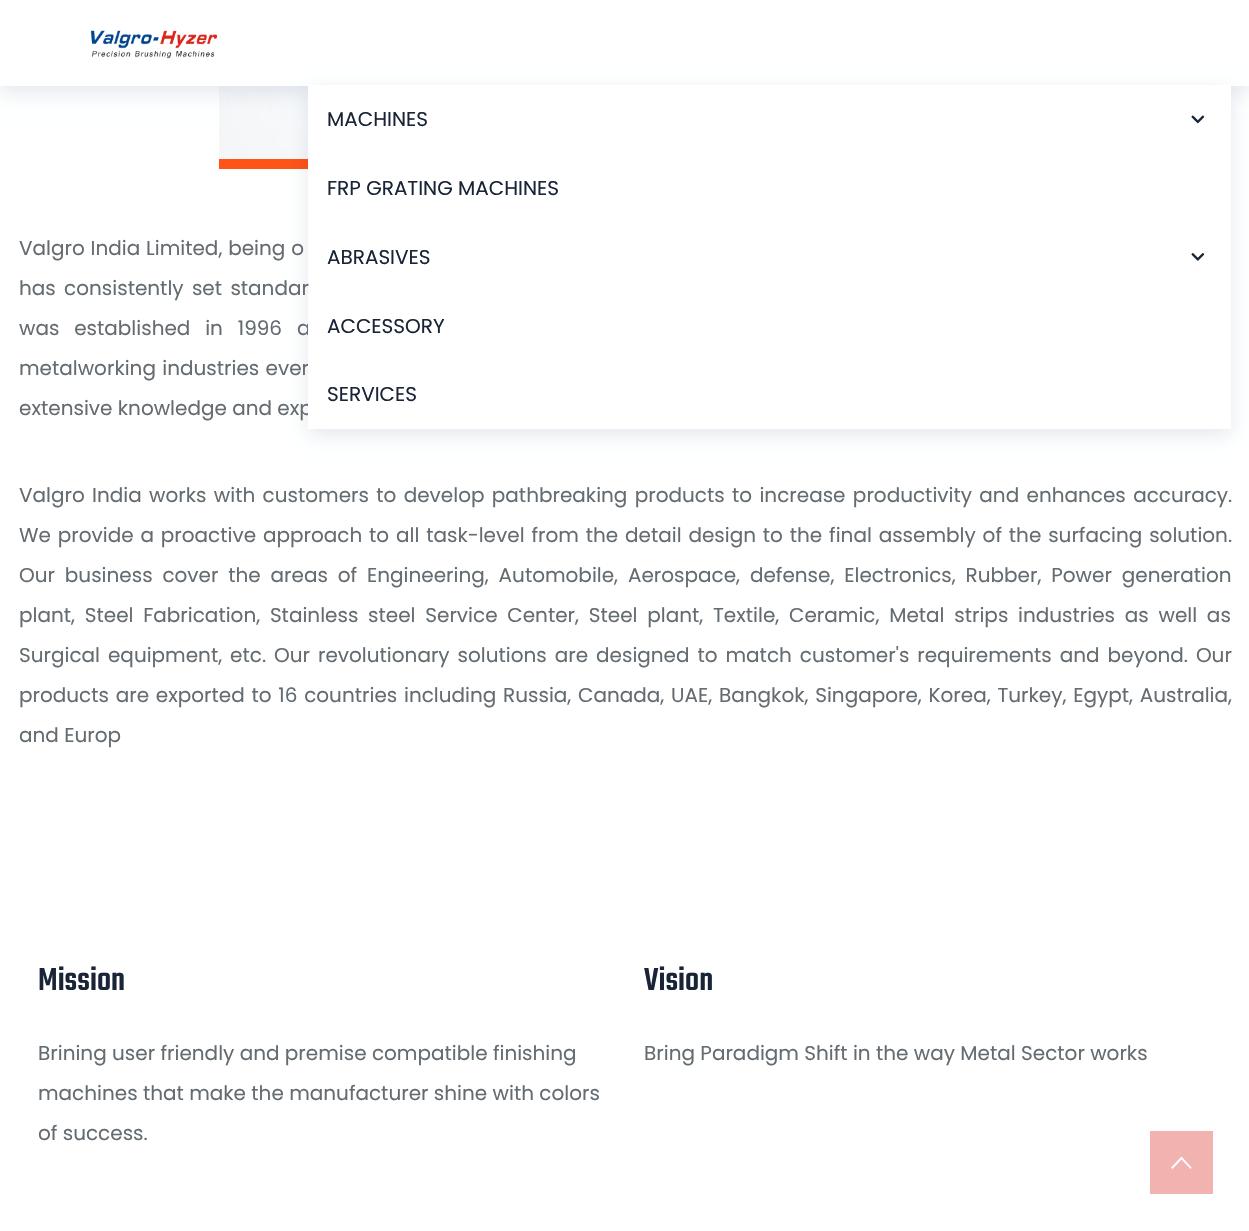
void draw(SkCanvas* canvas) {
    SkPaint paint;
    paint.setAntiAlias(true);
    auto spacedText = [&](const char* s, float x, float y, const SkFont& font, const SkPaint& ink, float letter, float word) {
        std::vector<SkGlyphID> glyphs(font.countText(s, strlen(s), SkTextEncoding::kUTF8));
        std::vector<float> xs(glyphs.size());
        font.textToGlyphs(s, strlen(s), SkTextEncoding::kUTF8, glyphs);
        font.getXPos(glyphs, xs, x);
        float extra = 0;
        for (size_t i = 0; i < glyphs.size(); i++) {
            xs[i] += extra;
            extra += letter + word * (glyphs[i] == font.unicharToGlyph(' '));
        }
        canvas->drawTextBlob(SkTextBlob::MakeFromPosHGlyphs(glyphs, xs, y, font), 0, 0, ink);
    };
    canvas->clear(0xFFFFFFFF);
    canvas->drawImageRect(SkImages::DeferredFromEncodedData(SkData::MakeFromFileName("img4.png")), SkRect::MakeXYWH(219, 86, 89, 73), SkSamplingOptions());
    paint.setColor(0x1A002155);
    paint.setMaskFilter(SkMaskFilter::MakeBlur(kNormal_SkBlurStyle, 9.5f));
    canvas->drawRect(SkRect::MakeXYWH(0, 6, 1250, 87), paint);
    paint.setMaskFilter(nullptr);
    paint.setColor(0xFFFFFFFF);
    canvas->drawRect(SkRect::MakeXYWH(0, 0, 1249, 86), paint);
    canvas->drawImageRect(SkImages::DeferredFromEncodedData(SkData::MakeFromFileName("img1.png")), SkRect::MakeXYWH(90, 30, 128, 29), SkSamplingOptions());
    paint.setColor(0xFFFF5317);
    canvas->drawRect(SkRect::MakeXYWH(219, 159, 89, 10), paint);
    paint.setColor(0x1A002155);
    paint.setMaskFilter(SkMaskFilter::MakeBlur(kNormal_SkBlurStyle, 9.5f));
    canvas->drawRect(SkRect::MakeXYWH(308, 91, 923, 344), paint);
    paint.setMaskFilter(nullptr);
    SkFont font1(fontMgr->matchFamilyStyle("Poppins", SkFontStyle::Normal()), 20);
    font1.setSubpixel(true);
    paint.setColor(0xFF646C71);
    spacedText("was established in 1996 a", 19, 335, font1, paint, 0, 9.5f);
    spacedText("metalworking industries ever", 19, 375, font1, paint, 0, 1);
    canvas->drawString("extensive knowledge and exp", 19, 415, font1, paint);
    paint.setColor(0xFFFFFFFF);
    canvas->drawRect(SkRect::MakeXYWH(308, 85, 923, 344), paint);
    paint.setColor(0xFF192436);
    canvas->drawString("MACHINES", 327, 126, font1, paint);
    canvas->drawImageRect(SkImages::DeferredFromEncodedData(SkData::MakeFromFileName("img2.png")), SkRect::MakeXYWH(1191, 115, 14, 9), SkSamplingOptions());
    canvas->drawString("FRP GRATING MACHINES", 327, 195, font1, paint);
    canvas->drawString("ABRASIVES", 327, 264, font1, paint);
    canvas->drawImageRect(SkImages::DeferredFromEncodedData(SkData::MakeFromFileName("img3.png")), SkRect::MakeXYWH(1191, 253, 14, 8), SkSamplingOptions());
    canvas->drawString("ACCESSORY", 327, 333, font1, paint);
    canvas->drawString("SERVICES", 327, 401, font1, paint);
    paint.setColor(0xFF646C71);
    spacedText("Valgro India Limited, being o", 19, 255, font1, paint, 0, 0.5f);
    spacedText("has consistently set standar", 19, 295, font1, paint, 0, 3);
    spacedText("Valgro India works with customers to develop pathbreaking products to increase productivity and enhances accuracy.", 19, 502, font1, paint, 0, 2);
    spacedText("We provide a proactive approach to all task-level from the detail design to the final assembly of the surfacing solution.", 19, 542, font1, paint, 0, 1.5f);
    spacedText("Our business cover the areas of Engineering, Automobile, Aerospace, defense, Electronics, Rubber, Power generation", 19, 582, font1, paint, 0, 4.5f);
    spacedText("plant, Steel Fabrication, Stainless steel Service Center, Steel plant, Textile, Ceramic, Metal strips industries as well as", 19, 622, font1, paint, 0, 4.4f);
    spacedText("Surgical equipment, etc. Our revolutionary solutions are designed to match customer's requirements and beyond. Our", 19, 662, font1, paint, 0, 2.6f);
    spacedText("products are exported to 16 countries including Russia, Canada, UAE, Bangkok, Singapore, Korea, Turkey, Egypt, Australia,", 19, 702, font1, paint, 0, 1.4f);
    canvas->drawString("and Europ", 19, 742, font1, paint);
    SkFont font2(fontMgr->matchFamilyStyle("Teko", SkFontStyle(500, SkFontStyle::kNormal_Width, SkFontStyle::kUpright_Slant)), 35);
    font2.setSubpixel(true);
    paint.setColor(0xFF192436);
    canvas->drawString("Mission", 38, 990, font2, paint);
    paint.setColor(0xFF646C71);
    canvas->drawString("Brining user friendly and premise compatible finishing", 38, 1060, font1, paint);
    canvas->drawString("machines that make the manufacturer shine with colors", 38, 1100, font1, paint);
    canvas->drawString("of success.", 38, 1140, font1, paint);
    paint.setColor(0xFF192436);
    canvas->drawString("Vision", 644, 990, font2, paint);
    paint.setColor(0xFF646C71);
    canvas->drawString("Bring Paradigm Shift in the way Metal Sector works", 644, 1060, font1, paint);
    paint.setColor(0xFFF2B2AF);
    canvas->drawRect(SkRect::MakeXYWH(1150, 1131, 63, 63), paint);
    paint.setColor(0xFFFFFFFF);
    canvas->drawPath(SkPathBuilder().moveTo(1190.5f, 1169).lineTo(1181.5f, 1159.5f).lineTo(1172.5f, 1169).lineTo(1171, 1167.5f).lineTo(1181.5f, 1156.5f).lineTo(1191.5f, 1167.5f).close().detach(), paint);
}
